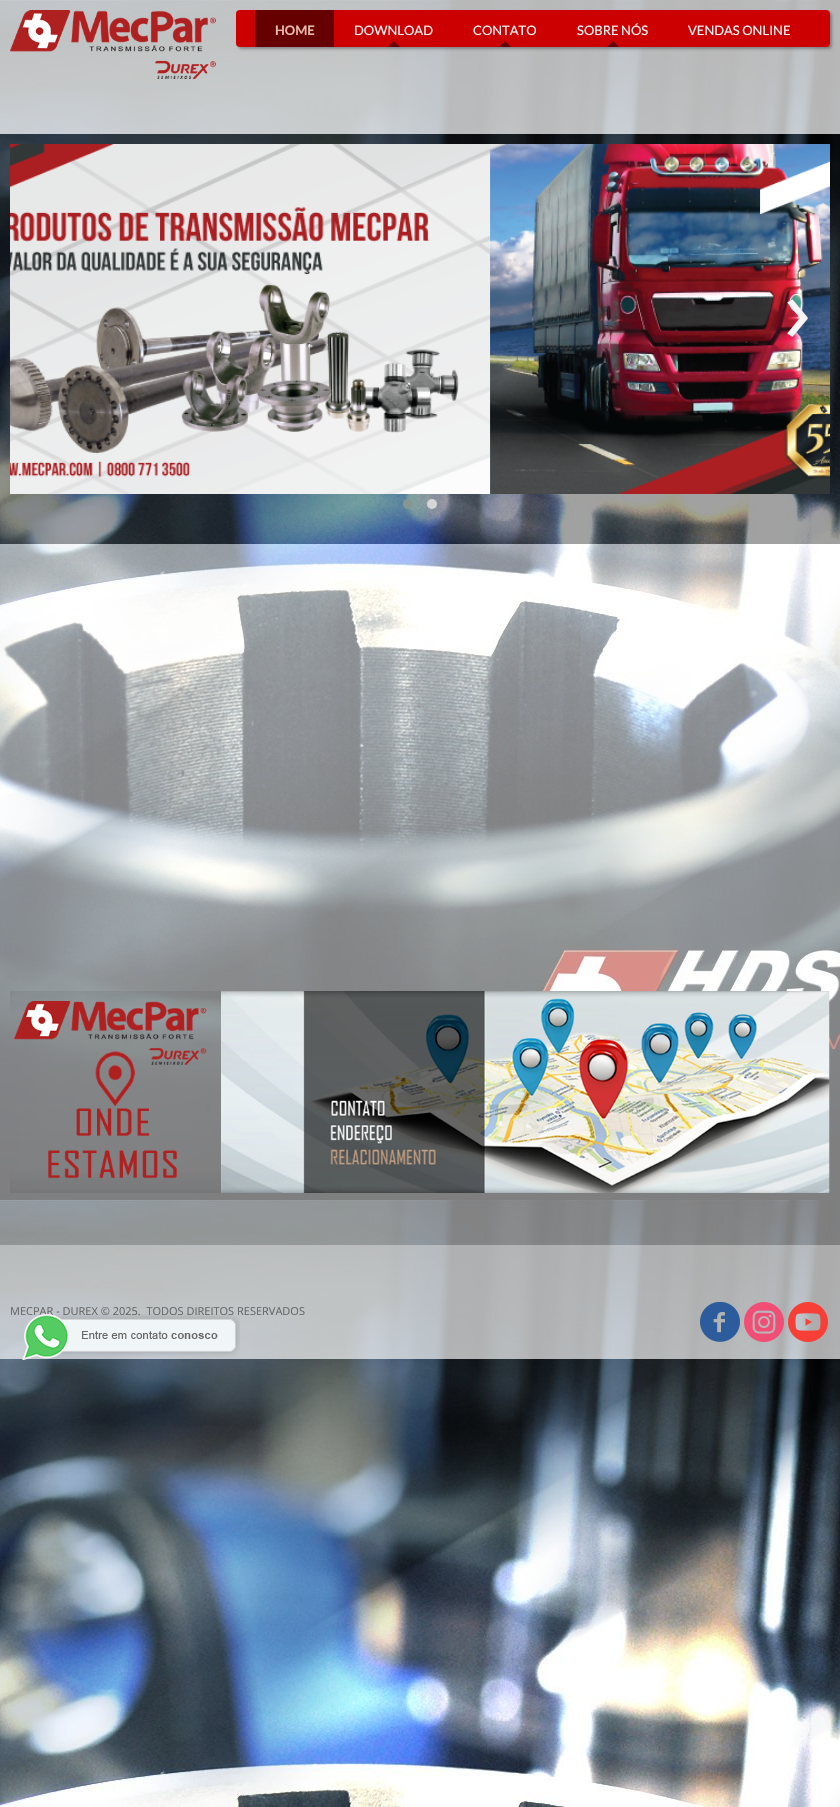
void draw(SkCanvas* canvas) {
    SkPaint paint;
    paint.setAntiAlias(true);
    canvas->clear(0xFFFFFFFF);
    canvas->drawImageRect(SkImages::DeferredFromEncodedData(SkData::MakeFromFileName("img1.png")), SkRect::MakeXYWH(0, 0, 840, 1807), SkSamplingOptions());
    paint.setColor(0xB5FFFFFF);
    canvas->drawRect(SkRect::MakeXYWH(0, 0, 840, 134), paint);
    canvas->drawImageRect(SkImages::DeferredFromEncodedData(SkData::MakeFromFileName("img2.png")), SkRect::MakeXYWH(10, 10, 206, 69), SkSamplingOptions());
    paint.setColor(0x4D000000);
    paint.setMaskFilter(SkMaskFilter::MakeBlur(kNormal_SkBlurStyle, 1.5f));
    canvas->drawRoundRect(SkRect::MakeXYWH(238, 12, 594, 37), 4, 4, paint);
    paint.setMaskFilter(nullptr);
    paint.setColor(0xFFCC0000);
    canvas->drawRoundRect(SkRect::MakeXYWH(236, 10, 594, 37), 4, 4, paint);
    paint.setColor(0xFF660000);
    canvas->drawRect(SkRect::MakeXYWH(255, 10, 79, 37), paint);
    SkFont font1(fontMgr->matchFamilyStyle("Lato", SkFontStyle::Bold()), 13);
    font1.setSubpixel(true);
    paint.setColor(0xFFE6B8AF);
    canvas->drawString("HOME", 275, 35, font1, paint);
    SkFont font2(fontMgr->matchFamilyStyle("Lato", SkFontStyle::Normal()), 13);
    font2.setSubpixel(true);
    paint.setColor(0xFFF5F5F5);
    canvas->drawString("DOWNLOAD", 354, 35, font2, paint);
    paint.setColor(0xFF660000);
    canvas->drawPath(SkPathBuilder().moveTo(400, 47).lineTo(388, 47).lineTo(394, 41).close().detach(), paint);
    paint.setColor(0xFFF5F5F5);
    canvas->drawString("CONTATO", 473, 35, font2, paint);
    paint.setColor(0xFF660000);
    canvas->drawPath(SkPathBuilder().moveTo(511, 47).lineTo(499, 47).lineTo(505, 41).close().detach(), paint);
    paint.setColor(0xFFF5F5F5);
    canvas->drawString("SOBRE NÓS", 577, 35, font2, paint);
    paint.setColor(0xFF660000);
    canvas->drawPath(SkPathBuilder().moveTo(619, 47).lineTo(607, 47).lineTo(613, 41).close().detach(), paint);
    paint.setColor(0xFFF5F5F5);
    canvas->drawString("VENDAS ONLINE", 688, 35, font2, paint);
    paint.setColor(0x5E000000);
    canvas->drawRect(SkRect::MakeXYWH(0, 134, 840, 410), paint);
    canvas->drawImageRect(SkImages::DeferredFromEncodedData(SkData::MakeFromFileName("img3.png")), SkRect::MakeXYWH(10, 144, 820, 350), SkSamplingOptions());
    SkFont font3(fontMgr->matchFamilyStyle("Open Sans", SkFontStyle::Normal()), 90);
    font3.setSubpixel(true);
    paint.setColor(0xFFF5F5F5);
    canvas->drawString("›", 784, 342, font3, paint);
    paint.setColor(0xFF869791);
    canvas->drawCircle(408, 504, 5, paint);
    paint.setColor(0xFFD6D6D6);
    canvas->drawCircle(432, 504, 5, paint);
    paint.setColor(0x7DFFFFFF);
    canvas->drawRect(SkRect::MakeXYWH(0, 544, 840, 701), paint);
    canvas->drawImageRect(SkImages::DeferredFromEncodedData(SkData::MakeFromFileName("img4.png")), SkRect::MakeXYWH(10, 991, 820, 202), SkSamplingOptions());
    paint.setColor(0xABFFFFFF);
    canvas->drawRect(SkRect::MakeXYWH(0, 1245, 840, 114), paint);
    SkFont font4(fontMgr->matchFamilyStyle("Open Sans", SkFontStyle::Normal()), 11);
    font4.setSubpixel(true);
    paint.setColor(0xFF666666);
    canvas->drawString("MECPAR - DUREX © 2025.  TODOS DIREITOS RESERVADOS", 10, 1315, font4, paint);
    canvas->drawImageRect(SkImages::DeferredFromEncodedData(SkData::MakeFromFileName("img5.png")), SkRect::MakeXYWH(700, 1302, 40, 40), SkSamplingOptions());
    canvas->drawImageRect(SkImages::DeferredFromEncodedData(SkData::MakeFromFileName("img6.png")), SkRect::MakeXYWH(744, 1302, 40, 40), SkSamplingOptions());
    canvas->drawImageRect(SkImages::DeferredFromEncodedData(SkData::MakeFromFileName("img7.png")), SkRect::MakeXYWH(788, 1302, 40, 40), SkSamplingOptions());
    canvas->drawImageRect(SkImages::DeferredFromEncodedData(SkData::MakeFromFileName("img8.png")), SkRect::MakeXYWH(22, 1314, 218, 46), SkSamplingOptions());
}
